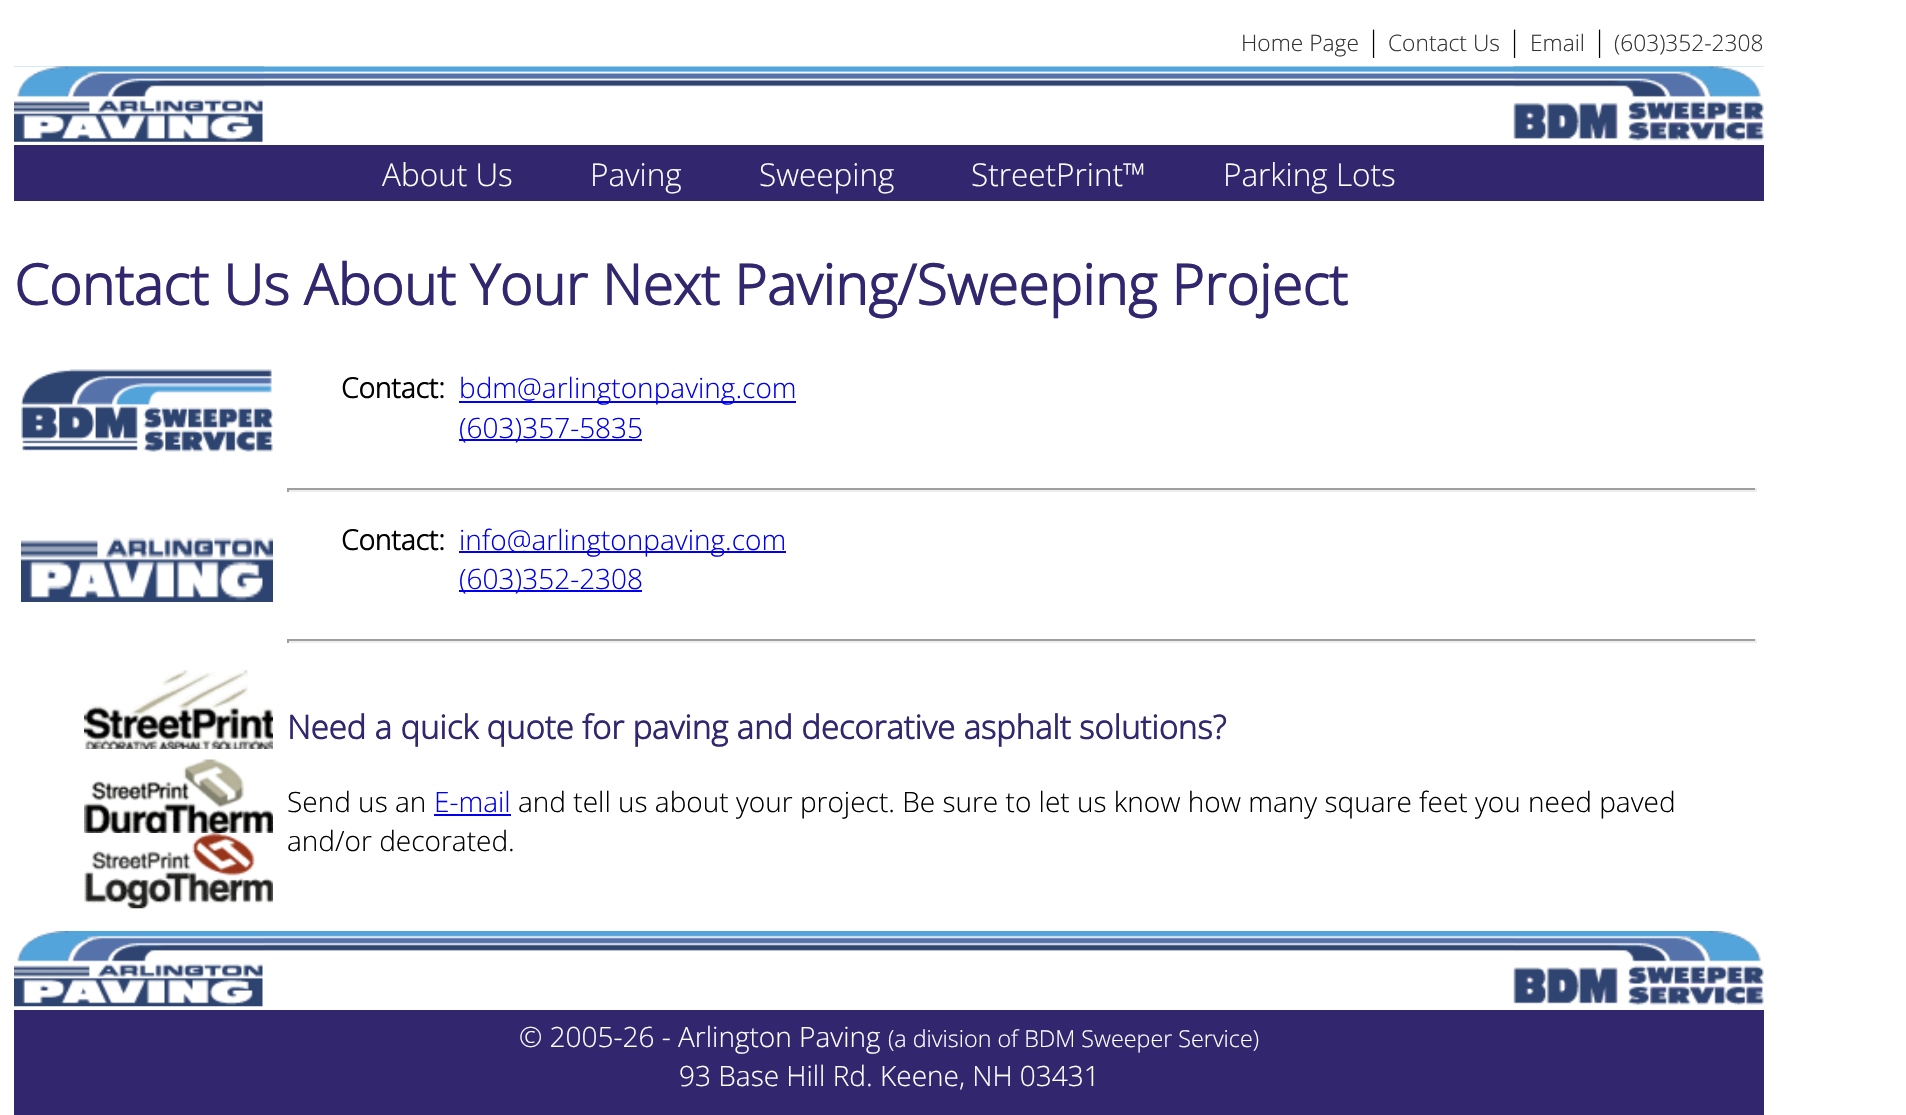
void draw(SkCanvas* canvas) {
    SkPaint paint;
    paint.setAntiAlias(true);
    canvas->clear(0xFFFFFFFF);
    SkFont font1(fontMgr->matchFamilyStyle("Open Sans", SkFontStyle(300, SkFontStyle::kNormal_Width, SkFontStyle::kUpright_Slant)), 22.75f);
    font1.setSubpixel(true);
    paint.setColor(0xFF333333);
    canvas->drawString("Home Page", 1241, 51, font1, paint);
    SkFont font2(fontMgr->matchFamilyStyle("Open Sans", SkFontStyle(300, SkFontStyle::kNormal_Width, SkFontStyle::kUpright_Slant)), 28);
    font2.setSubpixel(true);
    paint.setColor(0xFF000000);
    canvas->drawString("|", 1366, 51, font2, paint);
    paint.setColor(0xFF333333);
    canvas->drawString("Contact Us", 1388, 51, font1, paint);
    paint.setColor(0xFF000000);
    canvas->drawString("|", 1507, 51, font2, paint);
    paint.setColor(0xFF333333);
    canvas->drawString("Email", 1530, 51, font1, paint);
    paint.setColor(0xFF000000);
    canvas->drawString("|", 1592, 51, font2, paint);
    paint.setColor(0xFF333333);
    canvas->drawString("(603)352-2308", 1614, 51, font1, paint);
    canvas->drawImageRect(SkImages::DeferredFromEncodedData(SkData::MakeFromFileName("img1.png")), SkRect::MakeXYWH(14, 66, 1750, 21), SkSamplingOptions());
    canvas->drawImageRect(SkImages::DeferredFromEncodedData(SkData::MakeFromFileName("img2.png")), SkRect::MakeXYWH(14, 66, 251, 76), SkSamplingOptions());
    canvas->drawImageRect(SkImages::DeferredFromEncodedData(SkData::MakeFromFileName("img3.png")), SkRect::MakeXYWH(1513, 66, 251, 75), SkSamplingOptions());
    paint.setColor(0xFF32276E);
    canvas->drawRect(SkRect::MakeXYWH(14, 145, 1750, 56), paint);
    SkFont font3(fontMgr->matchFamilyStyle("Open Sans", SkFontStyle(300, SkFontStyle::kNormal_Width, SkFontStyle::kUpright_Slant)), 31.5f);
    font3.setSubpixel(true);
    paint.setColor(0xFFFFFFFF);
    canvas->drawString("About Us", 382, 186, font3, paint);
    canvas->drawString("Paving", 590, 186, font3, paint);
    canvas->drawString("Sweeping", 759, 186, font3, paint);
    canvas->drawString("StreetPrint™", 971, 186, font3, paint);
    canvas->drawString("Parking Lots", 1223, 186, font3, paint);
    SkFont font4(fontMgr->matchFamilyStyle("Open Sans", SkFontStyle::Bold()), 56);
    font4.setSubpixel(true);
    paint.setColor(0xFF32276E);
    canvas->drawString("Contact Us About Your Next Paving/Sweeping Project", 14, 305, font4, paint);
    canvas->drawImageRect(SkImages::DeferredFromEncodedData(SkData::MakeFromFileName("img4.png")), SkRect::MakeXYWH(21, 369, 252, 83), SkSamplingOptions());
    SkFont font5(fontMgr->matchFamilyStyle("Open Sans", SkFontStyle::Bold()), 28);
    font5.setSubpixel(true);
    paint.setColor(0xFF000000);
    canvas->drawString("Contact:", 341, 398, font5, paint);
    paint.setColor(0xFF0000EE);
    canvas->drawRect(SkRect::MakeXYWH(459, 401, 337, 2), paint);
    canvas->drawString("bdm@arlingtonpaving.com", 459, 398, font2, paint);
    canvas->drawRect(SkRect::MakeXYWH(459, 439, 183, 2), paint);
    canvas->drawString("(603)357-5835", 459, 438, font2, paint);
    paint.setColor(0xFF9F9F9F);
    canvas->drawRect(SkRect::MakeXYWH(287, 488, 1470, 2), paint);
    paint.setColor(0xFFEEEEEE);
    canvas->drawRect(SkRect::MakeXYWH(1755, 488, 2, 4), paint);
    canvas->drawRect(SkRect::MakeXYWH(287, 490, 1470, 2), paint);
    paint.setColor(0xFF9F9F9F);
    canvas->drawRect(SkRect::MakeXYWH(287, 488, 2, 4), paint);
    canvas->drawImageRect(SkImages::DeferredFromEncodedData(SkData::MakeFromFileName("img5.png")), SkRect::MakeXYWH(21, 537, 252, 65), SkSamplingOptions());
    paint.setColor(0xFF000000);
    canvas->drawString("Contact:", 341, 550, font5, paint);
    paint.setColor(0xFF0000EE);
    canvas->drawRect(SkRect::MakeXYWH(459, 551, 327, 2), paint);
    canvas->drawString("info@arlingtonpaving.com", 459, 550, font2, paint);
    canvas->drawRect(SkRect::MakeXYWH(459, 590, 183, 2), paint);
    canvas->drawString("(603)352-2308", 459, 589, font2, paint);
    paint.setColor(0xFF9F9F9F);
    canvas->drawRect(SkRect::MakeXYWH(287, 639, 1470, 2), paint);
    paint.setColor(0xFFEEEEEE);
    canvas->drawRect(SkRect::MakeXYWH(1755, 639, 2, 4), paint);
    canvas->drawRect(SkRect::MakeXYWH(287, 641, 1470, 2), paint);
    paint.setColor(0xFF9F9F9F);
    canvas->drawRect(SkRect::MakeXYWH(287, 639, 2, 4), paint);
    canvas->drawImageRect(SkImages::DeferredFromEncodedData(SkData::MakeFromFileName("img6.png")), SkRect::MakeXYWH(84, 670, 189, 79), SkSamplingOptions());
    canvas->drawImageRect(SkImages::DeferredFromEncodedData(SkData::MakeFromFileName("img7.png")), SkRect::MakeXYWH(84, 759, 189, 74), SkSamplingOptions());
    canvas->drawImageRect(SkImages::DeferredFromEncodedData(SkData::MakeFromFileName("img8.png")), SkRect::MakeXYWH(84, 833, 189, 76), SkSamplingOptions());
    SkFont font6(fontMgr->matchFamilyStyle("Open Sans", SkFontStyle::Bold()), 32.75f);
    font6.setSubpixel(true);
    paint.setColor(0xFF32276E);
    canvas->drawString("Need a quick quote for paving and decorative asphalt solutions?", 287, 739, font6, paint);
    paint.setColor(0xFF000000);
    canvas->drawString("Send us an", 287, 812, font2, paint);
    paint.setColor(0xFF0000EE);
    canvas->drawString("E-mail", 434, 812, font2, paint);
    canvas->drawRect(SkRect::MakeXYWH(434, 814, 77, 2), paint);
    paint.setColor(0xFF000000);
    canvas->drawString("and tell us about your project. Be sure to let us know how many square feet you need paved", 518, 812, font2, paint);
    canvas->drawString("and/or decorated.", 287, 851, font2, paint);
    canvas->drawImageRect(SkImages::DeferredFromEncodedData(SkData::MakeFromFileName("img9.png")), SkRect::MakeXYWH(264, 931, 1250, 20), SkSamplingOptions());
    canvas->drawImageRect(SkImages::DeferredFromEncodedData(SkData::MakeFromFileName("img10.png")), SkRect::MakeXYWH(14, 931, 250, 76), SkSamplingOptions());
    canvas->drawImageRect(SkImages::DeferredFromEncodedData(SkData::MakeFromFileName("img11.png")), SkRect::MakeXYWH(1513, 931, 251, 74), SkSamplingOptions());
    paint.setColor(0xFF32276E);
    canvas->drawRect(SkRect::MakeXYWH(14, 1010, 1750, 105), paint);
    paint.setColor(0xFFFFFFFF);
    canvas->drawString("© 2005-26 - Arlington Paving", 519, 1047, font2, paint);
    SkFont font7(fontMgr->matchFamilyStyle("Open Sans", SkFontStyle(300, SkFontStyle::kNormal_Width, SkFontStyle::kUpright_Slant)), 23.3f);
    font7.setSubpixel(true);
    canvas->drawString("(a division of BDM Sweeper Service)", 888, 1047, font7, paint);
    canvas->drawString("93 Base Hill Rd. Keene, NH 03431", 679, 1086, font2, paint);
}
